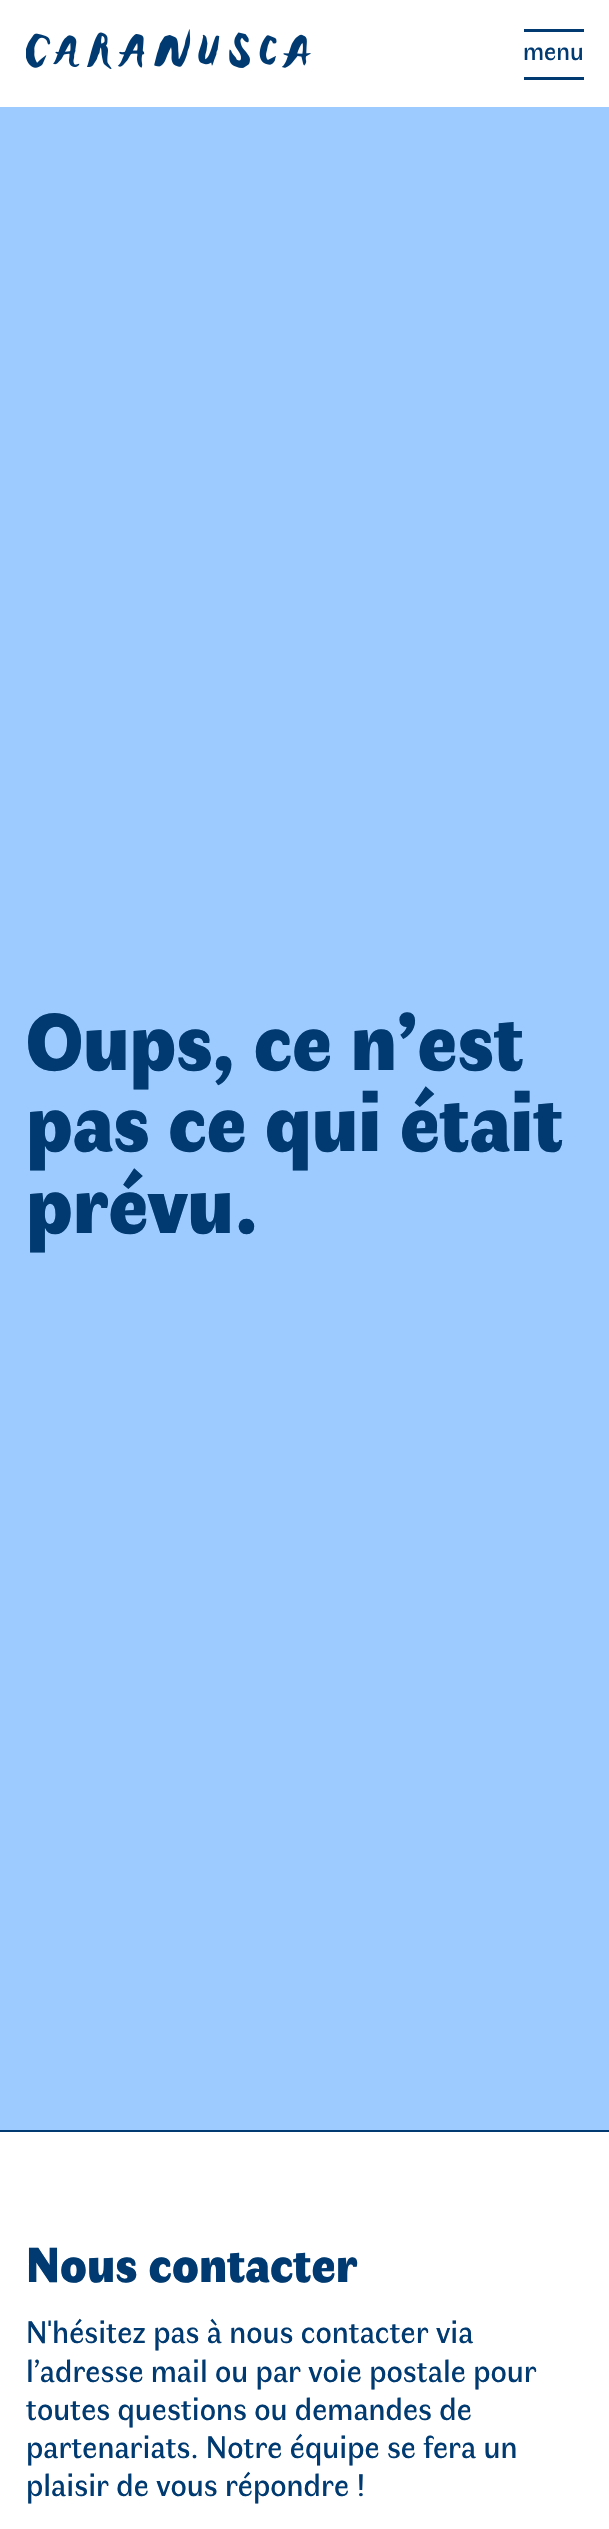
void draw(SkCanvas* canvas) {
    SkPaint paint;
    paint.setAntiAlias(true);
    canvas->clear(0xFFFFFFFF);
    canvas->drawImageRect(SkImages::DeferredFromEncodedData(SkData::MakeFromFileName("img1.png")), SkRect::MakeXYWH(26, 29, 285, 40), SkSamplingOptions());
    paint.setColor(0xFF003A70);
    canvas->drawRect(SkRect::MakeXYWH(524, 29, 60, 3), paint);
    SkFont font1(fontMgr->matchFamilyStyle("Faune", SkFontStyle::Normal()), 25.5f);
    font1.setSubpixel(true);
    canvas->drawString("menu", 523, 60, font1, paint);
    canvas->drawRect(SkRect::MakeXYWH(524, 77, 60, 3), paint);
    paint.setColor(0xFF9ECBFF);
    canvas->drawRect(SkRect::MakeXYWH(0, 107, 609, 2023), paint);
    SkFont font2(fontMgr->matchFamilyStyle("Faune", SkFontStyle(900, SkFontStyle::kNormal_Width, SkFontStyle::kUpright_Slant)), 81.5f);
    font2.setSubpixel(true);
    paint.setColor(0xFF003A70);
    canvas->drawString("Oups, ce n’est", 26, 1070, font2, paint);
    canvas->drawString("pas ce qui était", 26, 1151, font2, paint);
    canvas->drawString("prévu.", 26, 1233, font2, paint);
    canvas->drawRect(SkRect::MakeXYWH(0, 2130, 609, 2), paint);
    SkFont font3(fontMgr->matchFamilyStyle("Faune", SkFontStyle(900, SkFontStyle::kNormal_Width, SkFontStyle::kUpright_Slant)), 49.5f);
    font3.setSubpixel(true);
    canvas->drawString("Nous contacter", 26, 2282, font3, paint);
    SkFont font4(fontMgr->matchFamilyStyle("Faune", SkFontStyle::Normal()), 31.6f);
    font4.setSubpixel(true);
    canvas->drawString("N'hésitez pas à nous contacter via", 26, 2343, font4, paint);
    canvas->drawString("l’adresse mail ou par voie postale pour", 26, 2382, font4, paint);
    canvas->drawString("toutes questions ou demandes de", 26, 2420, font4, paint);
    canvas->drawString("partenariats. Notre équipe se fera un", 26, 2458, font4, paint);
    canvas->drawString("plaisir de vous répondre !", 26, 2496, font4, paint);
}
